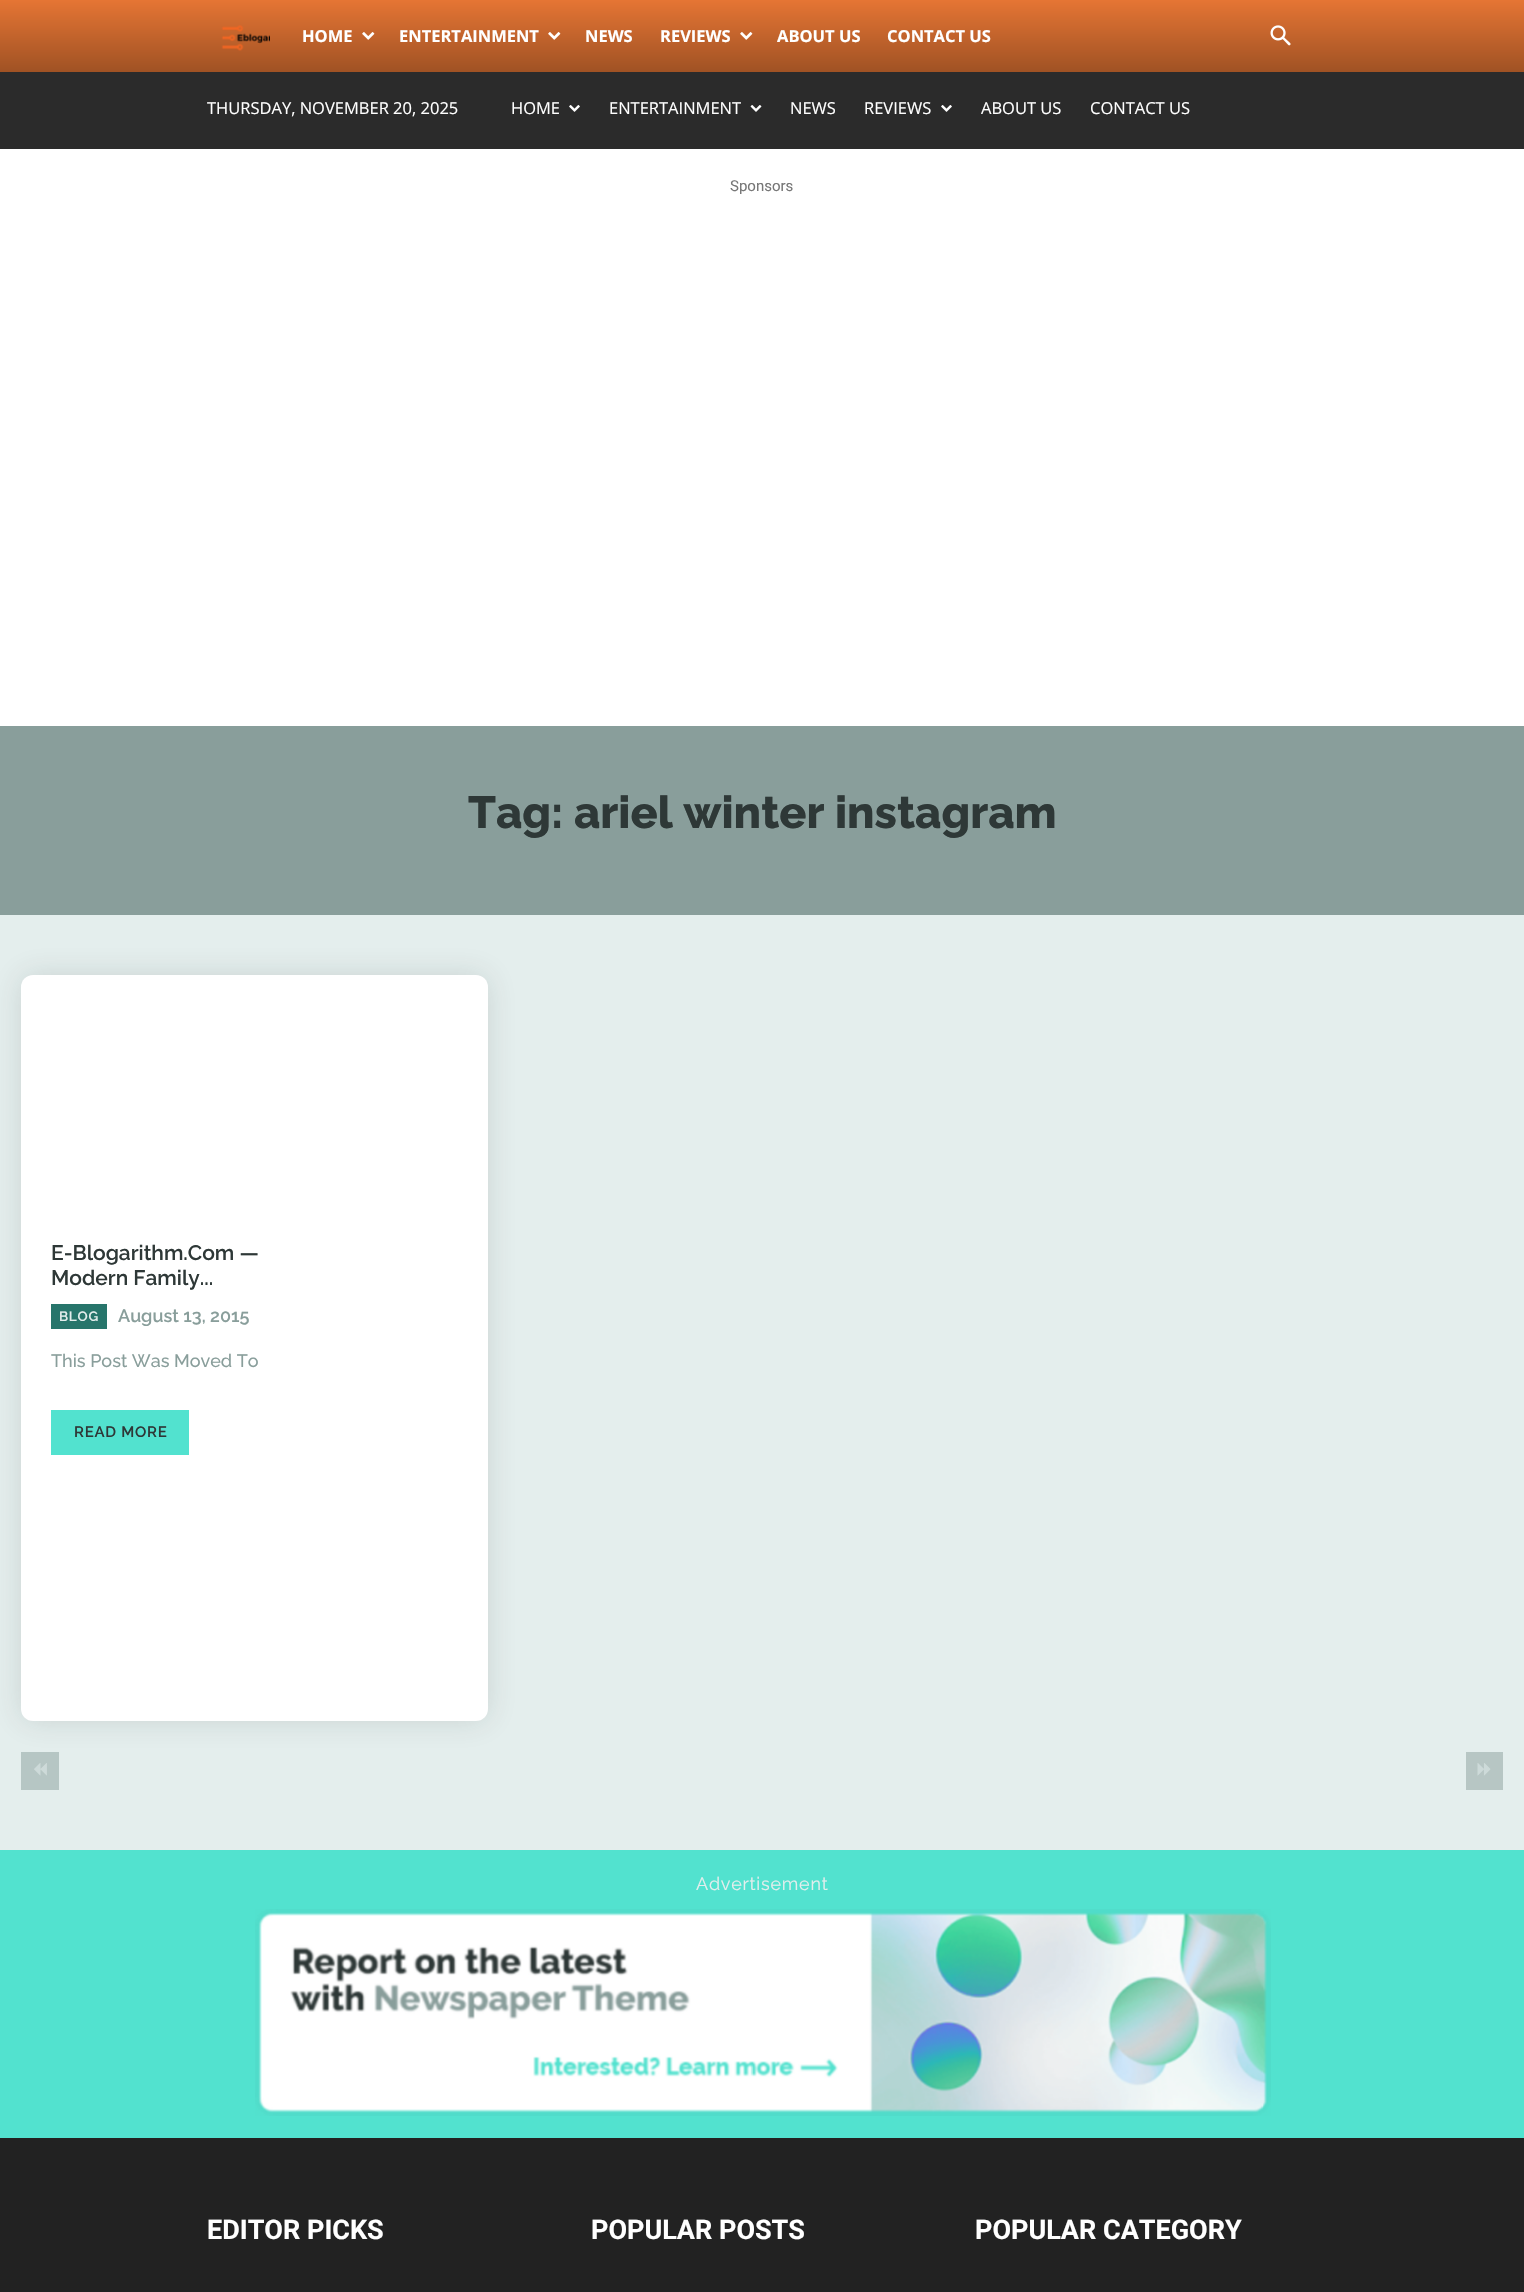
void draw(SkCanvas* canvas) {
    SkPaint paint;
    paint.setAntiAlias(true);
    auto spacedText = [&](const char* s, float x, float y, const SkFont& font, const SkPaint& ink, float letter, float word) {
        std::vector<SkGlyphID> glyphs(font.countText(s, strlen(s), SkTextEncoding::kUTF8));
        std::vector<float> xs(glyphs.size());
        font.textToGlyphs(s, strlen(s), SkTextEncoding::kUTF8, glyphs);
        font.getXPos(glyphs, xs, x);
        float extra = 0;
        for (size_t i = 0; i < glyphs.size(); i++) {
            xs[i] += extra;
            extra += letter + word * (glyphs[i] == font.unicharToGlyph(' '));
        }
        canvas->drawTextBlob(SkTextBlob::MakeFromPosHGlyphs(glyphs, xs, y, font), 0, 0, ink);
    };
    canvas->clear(0xFFFFFFFF);
    {
        const SkColor colors[] = {0xFFE57534, 0xFFA05224};
        const float stops[] = {0, 1};
        const SkPoint ends[] = {{762, 0}, {762, 72}};
        paint.setShader(SkGradientShader::MakeLinear(ends, colors, stops, 2, SkTileMode::kClamp));
        paint.setAlpha(255);
    }
    canvas->drawRect(SkRect::MakeXYWH(0, 0, 1524, 72), paint);
    canvas->drawImageRect(SkImages::DeferredFromEncodedData(SkData::MakeFromFileName("img1.png")), SkRect::MakeXYWH(221, 25, 49, 26), SkSamplingOptions());
    SkFont font1(fontMgr->matchFamilyStyle("Open Sans", SkFontStyle::Bold()), 16.5f);
    font1.setSubpixel(true);
    paint.setShader(nullptr);
    paint.setColor(0xFFFFFFFF);
    canvas->drawString("HOME", 302, 42, font1, paint);
    canvas->drawImageRect(SkImages::DeferredFromEncodedData(SkData::MakeFromFileName("img2.png")), SkRect::MakeXYWH(362, 32, 13, 8), SkSamplingOptions());
    canvas->drawString("ENTERTAINMENT", 399, 42, font1, paint);
    canvas->drawImageRect(SkImages::DeferredFromEncodedData(SkData::MakeFromFileName("img2.png")), SkRect::MakeXYWH(548, 32, 13, 8), SkSamplingOptions());
    canvas->drawString("NEWS", 585, 42, font1, paint);
    canvas->drawString("REVIEWS", 660, 42, font1, paint);
    canvas->drawImageRect(SkImages::DeferredFromEncodedData(SkData::MakeFromFileName("img2.png")), SkRect::MakeXYWH(740, 32, 13, 8), SkSamplingOptions());
    canvas->drawString("ABOUT US", 777, 42, font1, paint);
    canvas->drawString("CONTACT US", 887, 42, font1, paint);
    canvas->drawImageRect(SkImages::DeferredFromEncodedData(SkData::MakeFromFileName("img3.png")), SkRect::MakeXYWH(1270, 25, 21, 21), SkSamplingOptions());
    paint.setColor(0xFF2B2B2B);
    canvas->drawRect(SkRect::MakeXYWH(0, 72, 1524, 77), paint);
    SkFont font2(fontMgr->matchFamilyStyle("Open Sans", SkFontStyle::Normal()), 16.5f);
    font2.setSubpixel(true);
    paint.setColor(0xFFFFFFFF);
    canvas->drawString("THURSDAY, NOVEMBER 20, 2025", 207, 114, font2, paint);
    canvas->drawString("HOME", 511, 114, font2, paint);
    canvas->drawImageRect(SkImages::DeferredFromEncodedData(SkData::MakeFromFileName("img4.png")), SkRect::MakeXYWH(569, 105, 11, 7), SkSamplingOptions());
    canvas->drawString("ENTERTAINMENT", 609, 114, font2, paint);
    canvas->drawImageRect(SkImages::DeferredFromEncodedData(SkData::MakeFromFileName("img5.png")), SkRect::MakeXYWH(750, 105, 12, 7), SkSamplingOptions());
    canvas->drawString("NEWS", 790, 114, font2, paint);
    canvas->drawString("REVIEWS", 864, 114, font2, paint);
    canvas->drawImageRect(SkImages::DeferredFromEncodedData(SkData::MakeFromFileName("img4.png")), SkRect::MakeXYWH(941, 105, 11, 7), SkSamplingOptions());
    canvas->drawString("ABOUT US", 981, 114, font2, paint);
    canvas->drawString("CONTACT US", 1090, 114, font2, paint);
    SkFont font3(fontMgr->matchFamilyStyle("Roboto", SkFontStyle::Normal()), 15);
    font3.setSubpixel(true);
    paint.setColor(0xFF767676);
    canvas->drawString("Sponsors", 730, 191, font3, paint);
    paint.setColor(0xFF899E9B);
    canvas->drawRect(SkRect::MakeXYWH(0, 726, 1524, 189), paint);
    SkFont font4(fontMgr->matchFamilyStyle("Raleway", SkFontStyle(800, SkFontStyle::kNormal_Width, SkFontStyle::kUpright_Slant)), 45);
    font4.setSubpixel(true);
    paint.setColor(0xFF2E3837);
    canvas->drawString("Tag: ariel winter instagram", 468, 828, font4, paint);
    paint.setColor(0xFFE4EEED);
    canvas->drawRect(SkRect::MakeXYWH(0, 915, 1524, 935), paint);
    paint.setColor(0x262E3837);
    paint.setMaskFilter(SkMaskFilter::MakeBlur(kNormal_SkBlurStyle, 15));
    canvas->drawRoundRect(SkRect::MakeXYWH(21, 975, 467, 746), 12, 12, paint);
    paint.setMaskFilter(nullptr);
    paint.setColor(0xFFFFFFFF);
    canvas->drawRoundRect(SkRect::MakeXYWH(21, 975, 467, 746), 12, 12, paint);
    SkFont font5(fontMgr->matchFamilyStyle("Raleway", SkFontStyle(600, SkFontStyle::kNormal_Width, SkFontStyle::kUpright_Slant)), 21);
    font5.setSubpixel(true);
    paint.setColor(0xFF2E3837);
    canvas->drawString("E-Blogarithm.Com —", 51, 1260, font5, paint);
    canvas->drawString("Modern Family...", 51, 1285, font5, paint);
    paint.setColor(0xFF27756B);
    canvas->drawRect(SkRect::MakeXYWH(51, 1304, 56, 25), paint);
    SkFont font6(fontMgr->matchFamilyStyle("Raleway", SkFontStyle(600, SkFontStyle::kNormal_Width, SkFontStyle::kUpright_Slant)), 13.5f);
    font6.setSubpixel(true);
    paint.setColor(0xFFE4EEED);
    spacedText("BLOG", 59, 1321, font6, paint, 0.75f, 0);
    SkFont font7(fontMgr->matchFamilyStyle("Raleway", SkFontStyle(600, SkFontStyle::kNormal_Width, SkFontStyle::kUpright_Slant)), 18);
    font7.setSubpixel(true);
    paint.setColor(0xFF899E9B);
    canvas->drawString("August 13, 2015", 118, 1322, font7, paint);
    SkFont font8(fontMgr->matchFamilyStyle("Raleway", SkFontStyle(500, SkFontStyle::kNormal_Width, SkFontStyle::kUpright_Slant)), 18);
    font8.setSubpixel(true);
    canvas->drawString("This Post Was Moved To", 51, 1367, font8, paint);
    paint.setColor(0xFF52E2CF);
    canvas->drawRect(SkRect::MakeXYWH(51, 1410, 138, 45), paint);
    SkFont font9(fontMgr->matchFamilyStyle("Raleway", SkFontStyle(600, SkFontStyle::kNormal_Width, SkFontStyle::kUpright_Slant)), 15);
    font9.setSubpixel(true);
    paint.setColor(0xFF2E3837);
    spacedText("READ MORE", 74, 1437, font9, paint, 0.75f, 0);
    paint.setColor(0xFFB6C6C4);
    canvas->drawRect(SkRect::MakeXYWH(21, 1752, 38, 38), paint);
    canvas->drawImageRect(SkImages::DeferredFromEncodedData(SkData::MakeFromFileName("img6.png")), SkRect::MakeXYWH(34, 1763, 13, 13), SkSamplingOptions());
    paint.setColor(0xFFB7C6C4);
    canvas->drawRect(SkRect::MakeXYWH(1466, 1752, 37, 38), paint);
    canvas->drawImageRect(SkImages::DeferredFromEncodedData(SkData::MakeFromFileName("img7.png")), SkRect::MakeXYWH(1477, 1763, 14, 13), SkSamplingOptions());
    paint.setColor(0xFF52E2CF);
    canvas->drawRect(SkRect::MakeXYWH(0, 1850, 1524, 288), paint);
    SkFont font10(fontMgr->matchFamilyStyle("Raleway", SkFontStyle::Normal()), 18);
    font10.setSubpixel(true);
    paint.setColor(0xFFE4EEED);
    spacedText("Advertisement", 696, 1890, font10, paint, 0.75f, 0);
    canvas->drawImageRect(SkImages::DeferredFromEncodedData(SkData::MakeFromFileName("img8.png")), SkRect::MakeXYWH(255, 1909, 1016, 207), SkSamplingOptions());
    paint.setColor(0xFF222222);
    canvas->drawRect(SkRect::MakeXYWH(0, 2138, 1524, 154), paint);
    SkFont font11(fontMgr->matchFamilyStyle("Roboto", SkFontStyle::Bold()), 27);
    font11.setSubpixel(true);
    paint.setColor(0xFFFFFFFF);
    canvas->drawString("EDITOR PICKS", 207, 2239, font11, paint);
    canvas->drawString("POPULAR POSTS", 591, 2239, font11, paint);
    canvas->drawString("POPULAR CATEGORY", 975, 2239, font11, paint);
}
